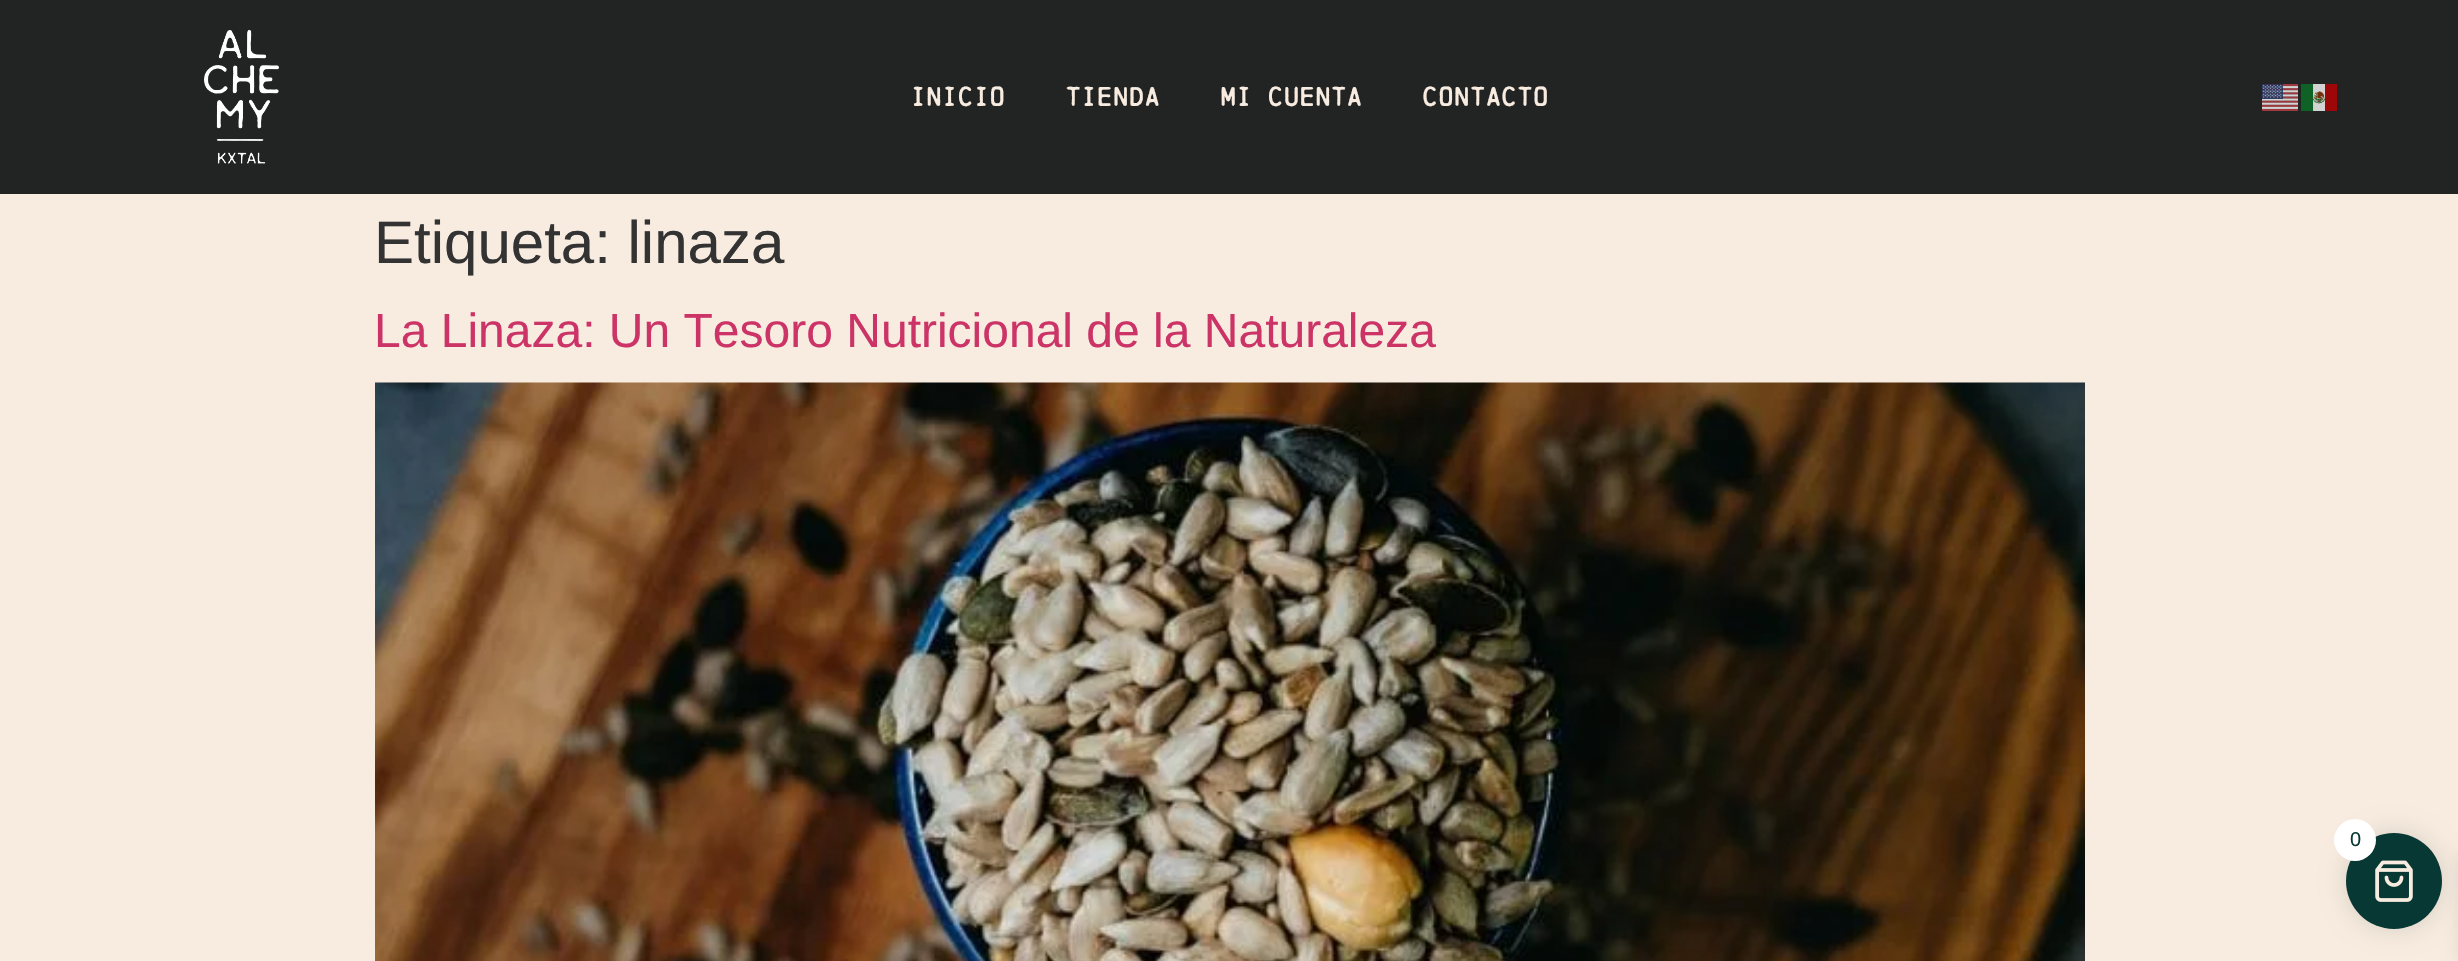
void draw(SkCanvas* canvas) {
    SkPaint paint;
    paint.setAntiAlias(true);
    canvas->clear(0xFFF8ECE0);
    paint.setColor(0xFF222323);
    canvas->drawRect(SkRect::MakeXYWH(0, 0, 2458, 194), paint);
    canvas->drawImageRect(SkImages::DeferredFromEncodedData(SkData::MakeFromFileName("img1.png")), SkRect::MakeXYWH(204, 30, 75, 134), SkSamplingOptions());
    SkFont font1(fontMgr->matchFamilyStyle("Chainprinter", SkFontStyle::Bold()), 24);
    font1.setSubpixel(true);
    paint.setColor(0xFFF8ECE0);
    canvas->drawString("Inicio", 910, 106, font1, paint);
    canvas->drawString("Tienda", 1065, 106, font1, paint);
    canvas->drawString("Mi cuenta", 1220, 106, font1, paint);
    canvas->drawString("Contacto", 1422, 106, font1, paint);
    canvas->drawImageRect(SkImages::DeferredFromEncodedData(SkData::MakeFromFileName("img2.png")), SkRect::MakeXYWH(2262, 84, 36, 27), SkSamplingOptions());
    canvas->drawImageRect(SkImages::DeferredFromEncodedData(SkData::MakeFromFileName("img3.png")), SkRect::MakeXYWH(2301, 84, 36, 27), SkSamplingOptions());
    SkFont font2(fontMgr->matchFamilyStyle("Liberation Sans", SkFontStyle::Normal()), 60);
    font2.setSubpixel(true);
    paint.setColor(0xFF333333);
    canvas->drawString("Etiqueta: linaza", 374, 263, font2, paint);
    SkFont font3(fontMgr->matchFamilyStyle("Liberation Sans", SkFontStyle::Normal()), 48);
    font3.setSubpixel(true);
    paint.setColor(0xFFCC3366);
    canvas->drawString("La Linaza: Un Tesoro Nutricional de la Naturaleza", 374, 347, font3, paint);
    canvas->drawImageRect(SkImages::DeferredFromEncodedData(SkData::MakeFromFileName("img4.png")), SkRect::MakeXYWH(375, 382, 1710, 579), SkSamplingOptions());
    paint.setColor(0x1A000000);
    paint.setMaskFilter(SkMaskFilter::MakeBlur(kNormal_SkBlurStyle, 11));
    canvas->drawRoundRect(SkRect::MakeXYWH(2343, 830, 102, 102), 51, 51, paint);
    paint.setMaskFilter(nullptr);
    paint.setMaskFilter(SkMaskFilter::MakeBlur(kNormal_SkBlurStyle, 7.5f));
    canvas->drawRect(SkRect::MakeXYWH(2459, 854, 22, 106), paint);
    paint.setMaskFilter(nullptr);
    paint.setColor(0xFF083834);
    canvas->drawCircle(2394, 881, 48, paint);
    canvas->drawImageRect(SkImages::DeferredFromEncodedData(SkData::MakeFromFileName("img5.png")), SkRect::MakeXYWH(2375, 860, 38, 42), SkSamplingOptions());
    paint.setColor(0xFFFFFFFF);
    canvas->drawCircle(2355, 840, 21, paint);
    SkFont font4(fontMgr->matchFamilyStyle("Liberation Sans", SkFontStyle::Normal()), 20);
    font4.setSubpixel(true);
    paint.setColor(0xFF083834);
    canvas->drawString("0", 2350, 846, font4, paint);
}
